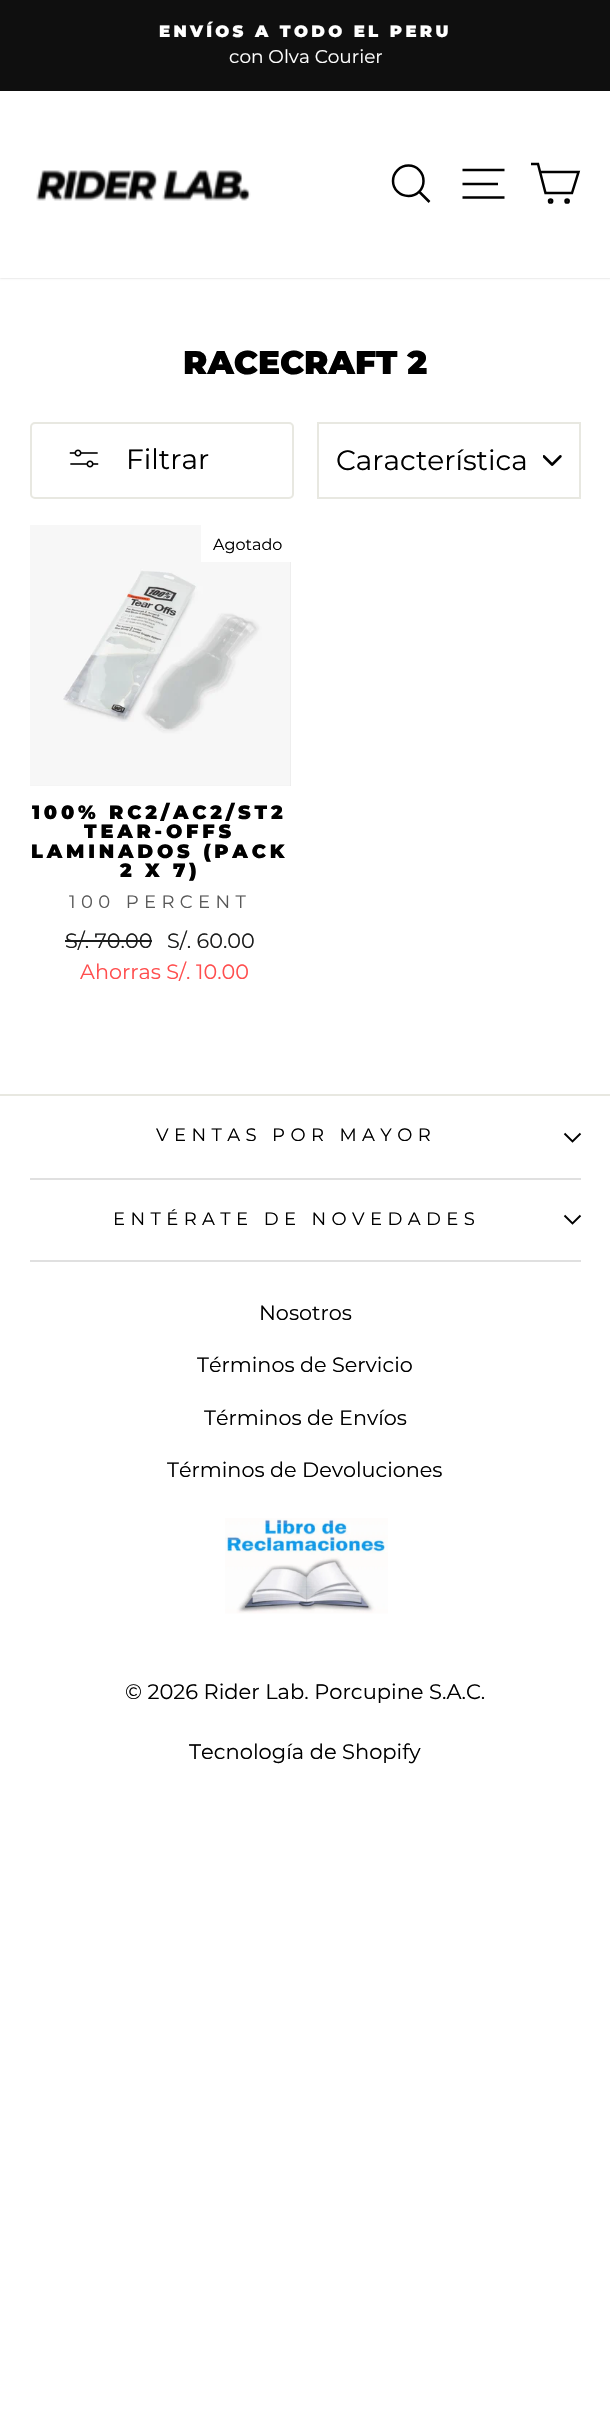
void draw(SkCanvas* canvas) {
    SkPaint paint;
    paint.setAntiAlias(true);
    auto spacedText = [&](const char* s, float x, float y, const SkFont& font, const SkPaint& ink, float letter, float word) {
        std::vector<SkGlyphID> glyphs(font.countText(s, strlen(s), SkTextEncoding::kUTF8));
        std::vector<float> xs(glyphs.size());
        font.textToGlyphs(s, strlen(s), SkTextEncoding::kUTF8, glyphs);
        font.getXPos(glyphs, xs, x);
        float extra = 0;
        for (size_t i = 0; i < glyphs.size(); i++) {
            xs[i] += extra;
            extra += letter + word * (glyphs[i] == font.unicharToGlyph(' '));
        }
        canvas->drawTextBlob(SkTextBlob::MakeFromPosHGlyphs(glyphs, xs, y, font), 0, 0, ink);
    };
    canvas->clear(0xFFFFFFFF);
    paint.setColor(0xFF0F0F0F);
    canvas->drawRect(SkRect::MakeXYWH(0, 0, 610, 91), paint);
    SkFont font1(fontMgr->matchFamilyStyle("Montserrat", SkFontStyle(900, SkFontStyle::kNormal_Width, SkFontStyle::kUpright_Slant)), 16.5f);
    font1.setSubpixel(true);
    paint.setColor(0xFFFFFFFF);
    spacedText("ENVÍOS A TODO EL PERU", 159, 37, font1, paint, 3.3f, 0);
    SkFont font2(fontMgr->matchFamilyStyle("Montserrat", SkFontStyle::Normal()), 18.5f);
    font2.setSubpixel(true);
    canvas->drawString("con Olva Courier", 229, 63, font2, paint);
    canvas->save();
    canvas->clipPath(SkPathBuilder(SkPathFillType::kEvenOdd).moveTo(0, 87).lineTo(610, 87).lineTo(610, 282).lineTo(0, 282).close().moveTo(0, 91).lineTo(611, 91).lineTo(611, 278).lineTo(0, 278).close().detach(), true);
    paint.setColor(0x33000000);
    paint.setMaskFilter(SkMaskFilter::MakeBlur(kNormal_SkBlurStyle, 1));
    canvas->drawRect(SkRect::MakeXYWH(0, 91, 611, 187), paint);
    paint.setMaskFilter(nullptr);
    canvas->restore();
    canvas->drawImageRect(SkImages::DeferredFromEncodedData(SkData::MakeFromFileName("img1.png")), SkRect::MakeXYWH(36, 170, 215, 31), SkSamplingOptions());
    paint.setStyle(SkPaint::kStroke_Style);
    paint.setStrokeWidth(2.5f);
    paint.setColor(0xFF000000);
    canvas->drawPath(SkPathBuilder().moveTo(423.5f, 181).cubicTo(423.5f, 189.5f, 417, 196, 408.5f, 196).cubicTo(400, 196, 393, 189.5f, 393, 181).cubicTo(393, 172.5f, 400, 165.5f, 408.5f, 165.5f).cubicTo(417, 165.5f, 423.5f, 172.5f, 423.5f, 181).close().moveTo(429.5f, 202).lineTo(419.5f, 192).detach(), paint);
    canvas->drawPath(SkPathBuilder().moveTo(462.5f, 170).lineTo(504.5f, 170).moveTo(462.5f, 184).lineTo(498, 184).moveTo(462.5f, 197.5f).lineTo(504.5f, 197.5f).detach(), paint);
    canvas->drawPath(SkPathBuilder().moveTo(540, 172).lineTo(578.5f, 172).lineTo(572, 193).lineTo(545.5f, 193).lineTo(538, 164).lineTo(531, 164).detach(), paint);
    canvas->drawCircle(550.6f, 201, 1.6f, paint);
    canvas->drawCircle(567.1f, 201, 1.6f, paint);
    SkFont font3(fontMgr->matchFamilyStyle("Montserrat", SkFontStyle(900, SkFontStyle::kNormal_Width, SkFontStyle::kUpright_Slant)), 32.75f);
    font3.setSubpixel(true);
    paint.setStyle(SkPaint::kFill_Style);
    canvas->drawString("RACECRAFT 2", 183, 374, font3, paint);
    paint.setStyle(SkPaint::kStroke_Style);
    paint.setStrokeWidth(2);
    paint.setColor(0xFFE8E8E1);
    canvas->drawRoundRect(SkRect::MakeXYWH(31, 423, 262, 75), 4, 4, paint);
    canvas->drawImageRect(SkImages::DeferredFromEncodedData(SkData::MakeFromFileName("img2.png")), SkRect::MakeXYWH(69, 449, 30, 19), SkSamplingOptions());
    SkFont font4(fontMgr->matchFamilyStyle("Montserrat", SkFontStyle::Normal()), 28);
    font4.setSubpixel(true);
    paint.setStyle(SkPaint::kFill_Style);
    paint.setColor(0xFF000000);
    canvas->drawString("Filtrar", 126, 469, font4, paint);
    canvas->drawImageRect(SkImages::DeferredFromEncodedData(SkData::MakeFromFileName("img3.png")), SkRect::MakeXYWH(543, 455, 19, 11), SkSamplingOptions());
    paint.setStyle(SkPaint::kStroke_Style);
    paint.setColor(0xFFE8E8E1);
    canvas->drawRect(SkRect::MakeXYWH(318, 423, 262, 75), paint);
    paint.setStyle(SkPaint::kFill_Style);
    paint.setColor(0xFF000000);
    canvas->drawString("Característica", 336, 470, font4, paint);
    paint.setColor(0xFFE5E5E5);
    canvas->drawRect(SkRect::MakeXYWH(30, 562, 261, 224), paint);
    canvas->drawImageRect(SkImages::DeferredFromEncodedData(SkData::MakeFromFileName("img4.png")), SkRect::MakeXYWH(30, 525, 261, 261), SkSamplingOptions());
    paint.setColor(0xFFFFFFFF);
    canvas->drawRect(SkRect::MakeXYWH(201, 525, 90, 37), paint);
    SkFont font5(fontMgr->matchFamilyStyle("Montserrat", SkFontStyle::Normal()), 16);
    font5.setSubpixel(true);
    paint.setColor(0xFF000000);
    canvas->drawString("Agotado", 213, 550, font5, paint);
    SkFont font6(fontMgr->matchFamilyStyle("Montserrat", SkFontStyle(900, SkFontStyle::kNormal_Width, SkFontStyle::kUpright_Slant)), 19.25f);
    font6.setSubpixel(true);
    spacedText("100% RC2/AC2/ST2", 32, 819, font6, paint, 3.8f, 0);
    spacedText("TEAR-OFFS", 84, 838, font6, paint, 3.8f, 0);
    spacedText("LAMINADOS (PACK", 31, 858, font6, paint, 3.8f, 0);
    spacedText("2 X 7)", 120, 877, font6, paint, 3.8f, 0);
    SkFont font7(fontMgr->matchFamilyStyle("Montserrat", SkFontStyle::Normal()), 18);
    font7.setSubpixel(true);
    paint.setColor(0xFF595959);
    spacedText("100 PERCENT", 69, 908, font7, paint, 5.4f, 0);
    SkFont font8(fontMgr->matchFamilyStyle("Montserrat", SkFontStyle::Normal()), 20.75f);
    font8.setSubpixel(true);
    paint.setColor(0xFF1C1D1D);
    canvas->drawString("S/. 70.00", 65, 948, font8, paint);
    canvas->drawRect(SkRect::MakeXYWH(65, 940, 87, 2), paint);
    canvas->drawString("S/. 60.00", 167, 948, font8, paint);
    paint.setColor(0xFFFF4E4E);
    canvas->drawString("Ahorras S/. 10.00", 80, 979, font8, paint);
    paint.setColor(0xFFE8E8E1);
    canvas->drawRect(SkRect::MakeXYWH(0, 1094, 610, 2), paint);
    paint.setColor(0xFF000000);
    spacedText("VENTAS POR MAYOR", 156, 1141, font7, paint, 5.4f, 0);
    paint.setStyle(SkPaint::kStroke_Style);
    paint.setStrokeWidth(1.9f);
    canvas->drawPath(SkPathBuilder().moveTo(564.5f, 1133.5f).lineTo(572.5f, 1141.5f).lineTo(580.5f, 1133.5f).detach(), paint);
    paint.setStyle(SkPaint::kFill_Style);
    paint.setColor(0xFFE0E0E0);
    canvas->drawRect(SkRect::MakeXYWH(30, 1178, 551, 2), paint);
    paint.setColor(0xFF000000);
    spacedText("ENTÉRATE DE NOVEDADES", 113, 1225, font7, paint, 5.4f, 0);
    paint.setStyle(SkPaint::kStroke_Style);
    canvas->drawPath(SkPathBuilder().moveTo(564.5f, 1215.5f).lineTo(572.5f, 1223.5f).lineTo(580.5f, 1215.5f).detach(), paint);
    paint.setStyle(SkPaint::kFill_Style);
    paint.setColor(0xFFE0E0E0);
    canvas->drawRect(SkRect::MakeXYWH(30, 1260, 551, 2), paint);
    paint.setColor(0xFF000000);
    canvas->drawString("Nosotros", 259, 1320, font8, paint);
    canvas->drawString("Términos de Servicio", 197, 1372, font8, paint);
    canvas->drawString("Términos de Envíos", 204, 1425, font8, paint);
    canvas->drawString("Términos de Devoluciones", 167, 1477, font8, paint);
    canvas->drawImageRect(SkImages::DeferredFromEncodedData(SkData::MakeFromFileName("img5.png")), SkRect::MakeXYWH(225, 1518, 163, 96), SkSamplingOptions());
    SkFont font9(fontMgr->matchFamilyStyle("Montserrat", SkFontStyle::Normal()), 21);
    font9.setSubpixel(true);
    canvas->drawString("© 2026 Rider Lab. Porcupine S.A.C.", 125, 1699, font9, paint);
    canvas->drawString("Tecnología de Shopify", 189, 1759, font9, paint);
}
